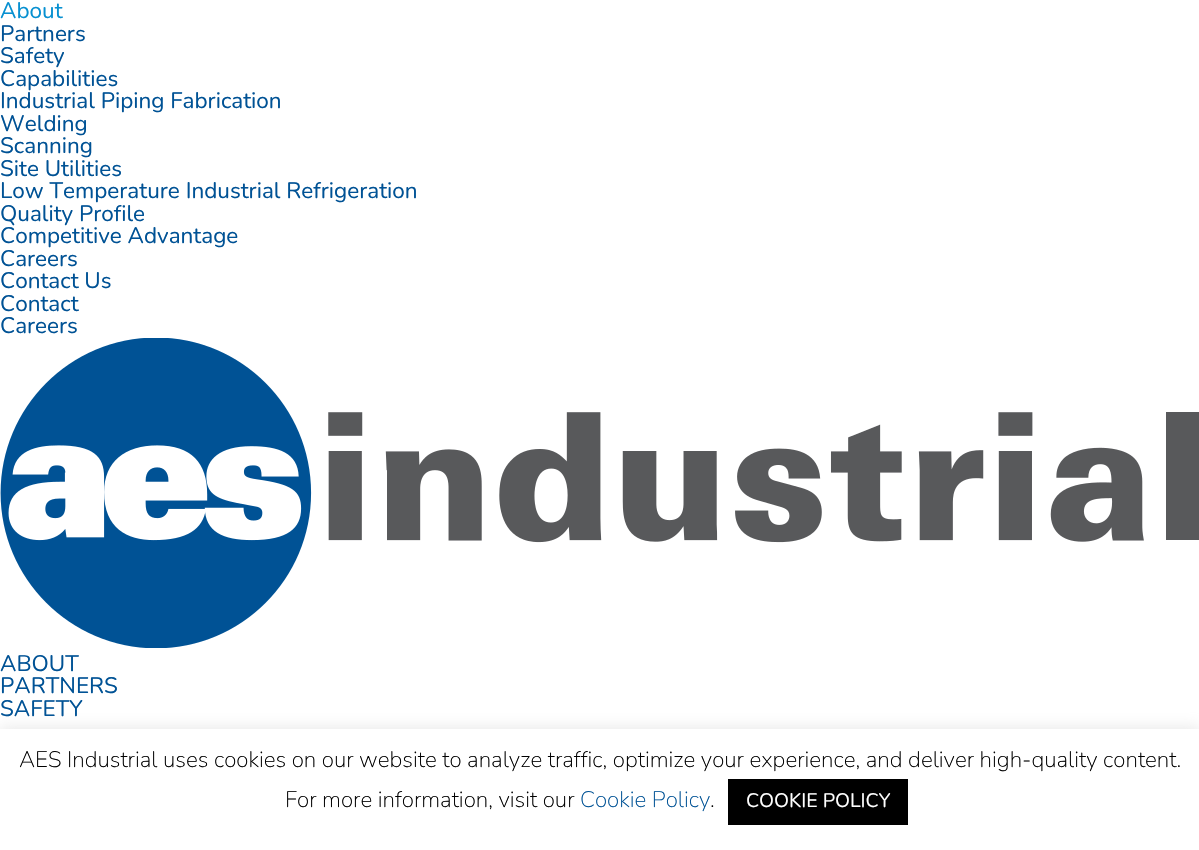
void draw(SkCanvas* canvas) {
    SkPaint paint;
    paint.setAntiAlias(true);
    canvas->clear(0xFFFFFFFF);
    SkFont font1(fontMgr->matchFamilyStyle("Nunito", SkFontStyle::Normal()), 22.5f);
    font1.setSubpixel(true);
    paint.setColor(0xFF0790D1);
    canvas->drawString("About", 0, 18, font1, paint);
    paint.setColor(0xFF005295);
    canvas->drawString("Partners", 0, 41, font1, paint);
    canvas->drawString("Safety", 0, 63, font1, paint);
    canvas->drawString("Capabilities", 0, 86, font1, paint);
    canvas->drawString("Industrial Piping Fabrication", 0, 108, font1, paint);
    canvas->drawString("Welding", 0, 131, font1, paint);
    canvas->drawString("Scanning", 0, 153, font1, paint);
    canvas->drawString("Site Utilities", 0, 176, font1, paint);
    canvas->drawString("Low Temperature Industrial Refrigeration", 0, 198, font1, paint);
    canvas->drawString("Quality Profile", 0, 221, font1, paint);
    canvas->drawString("Competitive Advantage", 0, 243, font1, paint);
    canvas->drawString("Careers", 0, 266, font1, paint);
    canvas->drawString("Contact Us", 0, 288, font1, paint);
    canvas->drawString("Contact", 0, 311, font1, paint);
    canvas->drawString("Careers", 0, 333, font1, paint);
    canvas->drawImageRect(SkImages::DeferredFromEncodedData(SkData::MakeFromFileName("img1.png")), SkRect::MakeXYWH(0, 338, 1199, 310), SkSamplingOptions());
    canvas->drawString("ABOUT", 0, 671, font1, paint);
    canvas->drawString("PARTNERS", 0, 693, font1, paint);
    canvas->drawString("SAFETY", 0, 716, font1, paint);
    paint.setColor(0x4DACABAB);
    paint.setMaskFilter(SkMaskFilter::MakeBlur(kNormal_SkBlurStyle, 7.5f));
    canvas->drawRect(SkRect::MakeXYWH(0, 728, 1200, 121), paint);
    paint.setMaskFilter(nullptr);
    paint.setColor(0xFFFFFFFF);
    canvas->drawRect(SkRect::MakeXYWH(0, 729, 1199, 121), paint);
    SkFont font2(fontMgr->matchFamilyStyle("Nunito", SkFontStyle(200, SkFontStyle::kNormal_Width, SkFontStyle::kUpright_Slant)), 22.5f);
    font2.setSubpixel(true);
    paint.setColor(0xFF000000);
    canvas->drawString("AES Industrial uses cookies on our website to analyze traffic, optimize your experience, and deliver high-quality content.", 19, 767, font2, paint);
    canvas->drawString("For more information, visit our", 285, 807, font2, paint);
    paint.setColor(0xFF005295);
    canvas->drawString("Cookie Policy", 580, 807, font2, paint);
    paint.setColor(0xFF000000);
    canvas->drawString(".", 710, 807, font2, paint);
    canvas->drawRect(SkRect::MakeXYWH(728, 779, 180, 46), paint);
    SkFont font3(fontMgr->matchFamilyStyle("Nunito", SkFontStyle::Normal()), 19.5f);
    font3.setSubpixel(true);
    paint.setColor(0xFFFFFFFF);
    canvas->drawString("COOKIE POLICY", 746, 807, font3, paint);
}
